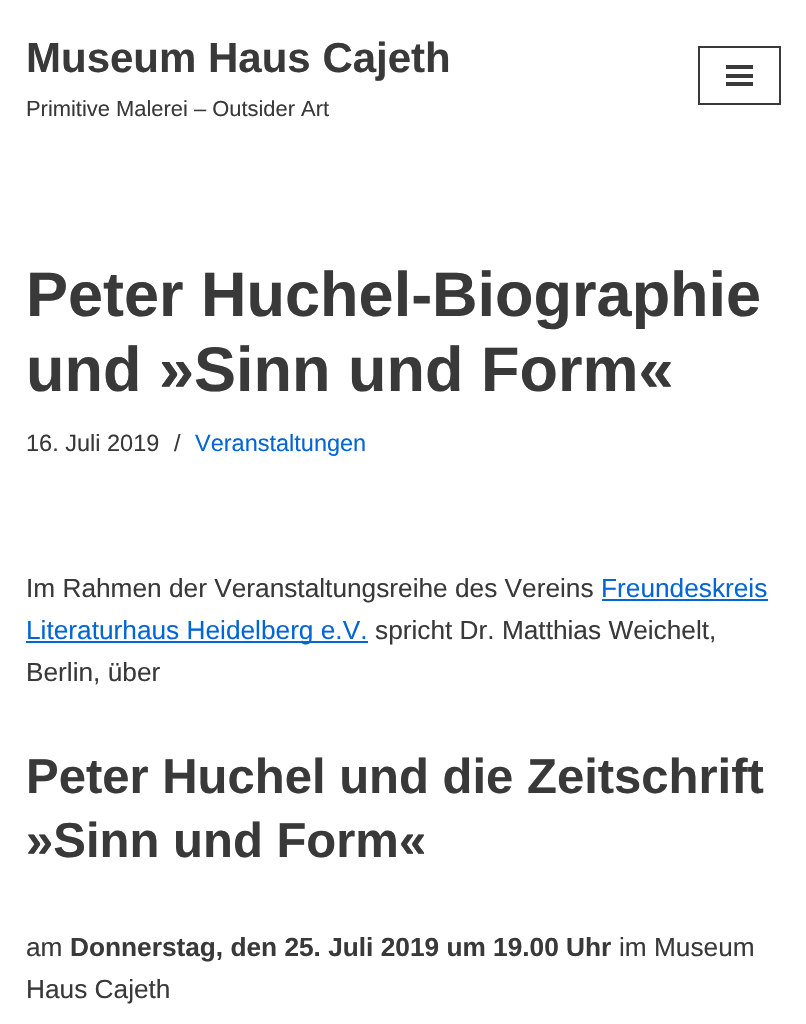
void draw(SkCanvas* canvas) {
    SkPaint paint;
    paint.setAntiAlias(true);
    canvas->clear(0xFFFFFFFF);
    SkFont font1(fontMgr->matchFamilyStyle("Liberation Sans", SkFontStyle::Bold()), 42);
    font1.setSubpixel(true);
    paint.setColor(0xFF393939);
    canvas->drawString("Museum Haus Cajeth", 26, 72, font1, paint);
    SkFont font2(fontMgr->matchFamilyStyle("Liberation Sans", SkFontStyle::Normal()), 21.9f);
    font2.setSubpixel(true);
    canvas->drawString("Primitive Malerei – Outsider Art", 26, 116, font2, paint);
    paint.setStyle(SkPaint::kStroke_Style);
    paint.setStrokeWidth(2);
    canvas->drawRect(SkRect::MakeXYWH(699, 47, 81, 57), paint);
    paint.setStyle(SkPaint::kFill_Style);
    canvas->drawRect(SkRect::MakeXYWH(726, 65, 27, 4), paint);
    canvas->drawRect(SkRect::MakeXYWH(726, 74, 27, 4), paint);
    canvas->drawRect(SkRect::MakeXYWH(726, 82, 27, 4), paint);
    SkFont font3(fontMgr->matchFamilyStyle("Liberation Sans", SkFontStyle::Bold()), 63);
    font3.setSubpixel(true);
    canvas->drawString("Peter Huchel-Biographie", 26, 316, font3, paint);
    canvas->drawString("und »Sinn und Form«", 26, 391, font3, paint);
    SkFont font4(fontMgr->matchFamilyStyle("Liberation Sans", SkFontStyle::Normal()), 23.5f);
    font4.setSubpixel(true);
    canvas->drawString("16. Juli 2019", 26, 451, font4, paint);
    canvas->drawString("/", 174, 451, font4, paint);
    paint.setColor(0xFF0366D6);
    canvas->drawString("Veranstaltungen", 195, 451, font4, paint);
    SkFont font5(fontMgr->matchFamilyStyle("Liberation Sans", SkFontStyle::Normal()), 26.25f);
    font5.setSubpixel(true);
    paint.setColor(0xFF393939);
    canvas->drawString("Im Rahmen der Veranstaltungsreihe des Vereins", 26, 597, font5, paint);
    paint.setColor(0xFF0366D6);
    canvas->drawString("Freundeskreis", 601, 597, font5, paint);
    canvas->drawRect(SkRect::MakeXYWH(602, 599, 166, 2), paint);
    canvas->drawRect(SkRect::MakeXYWH(26, 641, 342, 2), paint);
    canvas->drawString("Literaturhaus Heidelberg e.V.", 26, 639, font5, paint);
    paint.setColor(0xFF393939);
    canvas->drawString("spricht Dr. Matthias Weichelt,", 375, 639, font5, paint);
    canvas->drawString("Berlin, über", 26, 681, font5, paint);
    SkFont font6(fontMgr->matchFamilyStyle("Liberation Sans", SkFontStyle::Bold()), 49);
    font6.setSubpixel(true);
    canvas->drawString("Peter Huchel und die Zeitschrift", 26, 793, font6, paint);
    canvas->drawString("»Sinn und Form«", 26, 857, font6, paint);
    canvas->drawString("am", 26, 956, font5, paint);
    SkFont font7(fontMgr->matchFamilyStyle("Liberation Sans", SkFontStyle::Bold()), 26.25f);
    font7.setSubpixel(true);
    canvas->drawString("Donnerstag, den 25. Juli 2019 um 19.00 Uhr", 70, 956, font7, paint);
    canvas->drawString("im Museum", 619, 956, font5, paint);
    canvas->drawString("Haus Cajeth", 26, 998, font5, paint);
}
